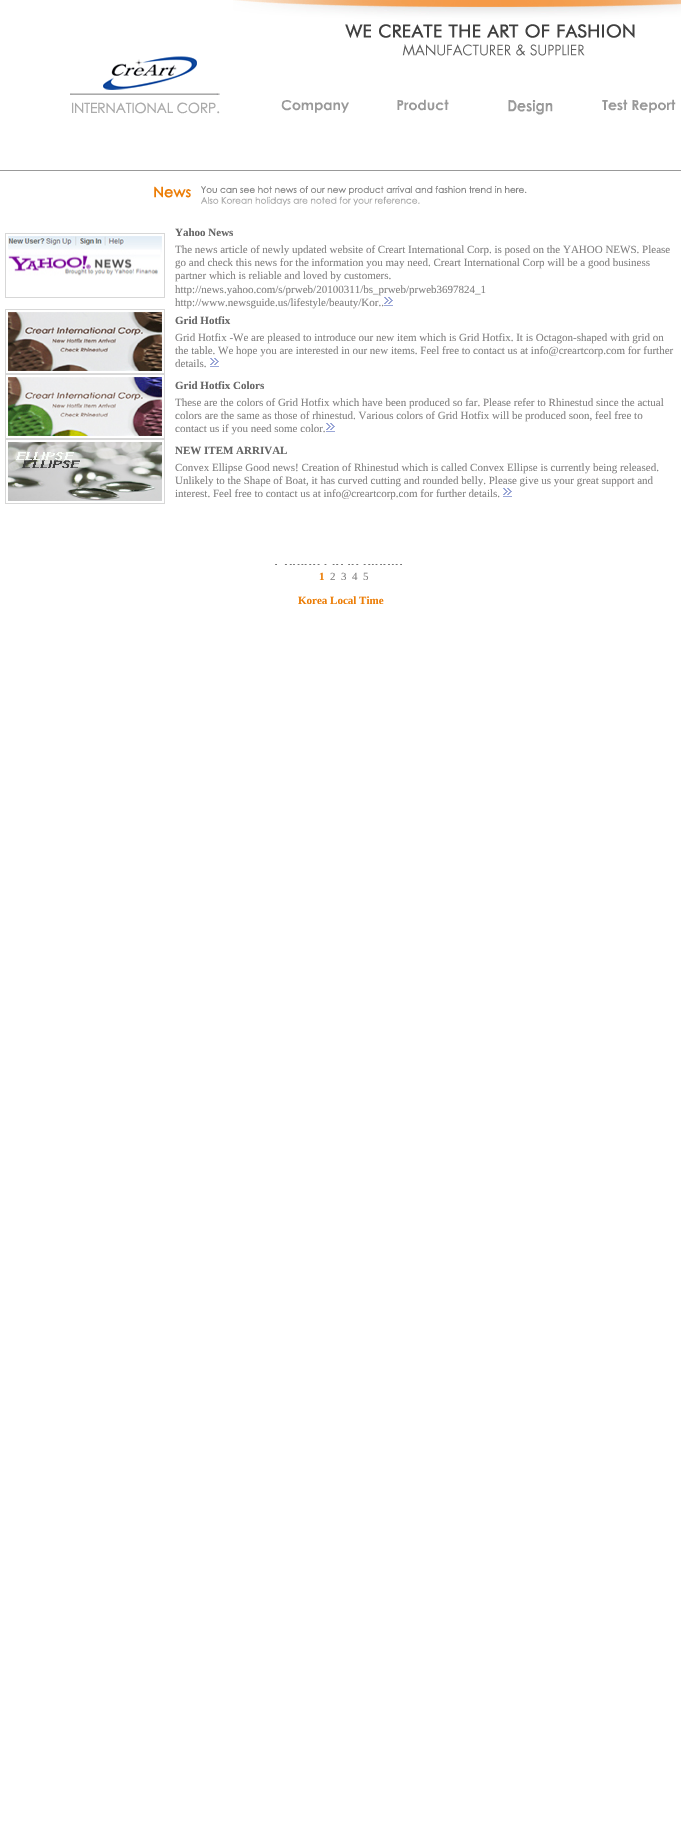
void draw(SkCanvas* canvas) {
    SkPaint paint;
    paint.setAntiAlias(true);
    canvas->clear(0xFFFFFFFF);
    canvas->drawImageRect(SkImages::DeferredFromEncodedData(SkData::MakeFromFileName("img1.png")), SkRect::MakeXYWH(233, 0, 448, 56), SkSamplingOptions());
    paint.setColor(0xFF999999);
    canvas->drawRect(SkRect::MakeXYWH(0, 170, 681, 1), paint);
    canvas->drawImageRect(SkImages::DeferredFromEncodedData(SkData::MakeFromFileName("img2.png")), SkRect::MakeXYWH(70, 56, 150, 58), SkSamplingOptions());
    canvas->drawImageRect(SkImages::DeferredFromEncodedData(SkData::MakeFromFileName("img3.png")), SkRect::MakeXYWH(281, 100, 68, 13), SkSamplingOptions());
    canvas->drawImageRect(SkImages::DeferredFromEncodedData(SkData::MakeFromFileName("img4.png")), SkRect::MakeXYWH(397, 99, 52, 12), SkSamplingOptions());
    canvas->drawImageRect(SkImages::DeferredFromEncodedData(SkData::MakeFromFileName("img5.png")), SkRect::MakeXYWH(508, 100, 45, 15), SkSamplingOptions());
    canvas->drawImageRect(SkImages::DeferredFromEncodedData(SkData::MakeFromFileName("img6.png")), SkRect::MakeXYWH(602, 99, 74, 14), SkSamplingOptions());
    canvas->drawImageRect(SkImages::DeferredFromEncodedData(SkData::MakeFromFileName("img7.png")), SkRect::MakeXYWH(154, 186, 37, 12), SkSamplingOptions());
    canvas->drawImageRect(SkImages::DeferredFromEncodedData(SkData::MakeFromFileName("img8.png")), SkRect::MakeXYWH(201, 186, 326, 20), SkSamplingOptions());
    paint.setColor(0xFFD7D7D7);
    canvas->drawRect(SkRect::MakeXYWH(5, 233, 160, 65), paint);
    paint.setColor(0xFFFFFFFF);
    canvas->drawRect(SkRect::MakeXYWH(6, 234, 158, 63), paint);
    canvas->drawImageRect(SkImages::DeferredFromEncodedData(SkData::MakeFromFileName("img9.png")), SkRect::MakeXYWH(8, 236, 154, 40), SkSamplingOptions());
    SkFont font1(fontMgr->matchFamilyStyle("Liberation Serif", SkFontStyle::Bold()), 11);
    font1.setSubpixel(true);
    paint.setColor(0xFF666666);
    canvas->drawString("Yahoo News", 175, 236, font1, paint);
    SkFont font2(fontMgr->matchFamilyStyle("Liberation Serif", SkFontStyle::Normal()), 11);
    font2.setSubpixel(true);
    paint.setColor(0xFF838282);
    canvas->drawString("The news article of newly updated website of Creart International Corp. is posed on the YAHOO NEWS. Please", 175, 253, font2, paint);
    canvas->drawString("go and check this news for the information you may need. Creart International Corp will be a good business", 175, 266, font2, paint);
    canvas->drawString("partner which is reliable and loved by customers.", 175, 279, font2, paint);
    canvas->drawString("http://news.yahoo.com/s/prweb/20100311/bs_prweb/prweb3697824_1", 175, 293, font2, paint);
    canvas->drawString("http://www.newsguide.us/lifestyle/beauty/Kor..", 175, 306, font2, paint);
    canvas->drawImageRect(SkImages::DeferredFromEncodedData(SkData::MakeFromFileName("img10.png")), SkRect::MakeXYWH(384, 297, 9, 9), SkSamplingOptions());
    paint.setColor(0xFFD7D7D7);
    canvas->drawRect(SkRect::MakeXYWH(5, 309, 160, 195), paint);
    paint.setColor(0xFFFFFFFF);
    canvas->drawRect(SkRect::MakeXYWH(6, 310, 158, 63), paint);
    canvas->drawImageRect(SkImages::DeferredFromEncodedData(SkData::MakeFromFileName("img11.png")), SkRect::MakeXYWH(8, 312, 154, 59), SkSamplingOptions());
    paint.setColor(0xFF666666);
    canvas->drawString("Grid Hotfix", 175, 324, font1, paint);
    paint.setColor(0xFF838282);
    canvas->drawString("Grid Hotfix -We are pleased to introduce our new item which is Grid Hotfix. It is Octagon-shaped with grid on", 175, 341, font2, paint);
    canvas->drawString("the table. We hope you are interested in our new items. Feel free to contact us at info@creartcorp.com for further", 175, 354, font2, paint);
    canvas->drawString("details.", 175, 367, font2, paint);
    canvas->drawImageRect(SkImages::DeferredFromEncodedData(SkData::MakeFromFileName("img10.png")), SkRect::MakeXYWH(210, 358, 9, 9), SkSamplingOptions());
    paint.setColor(0xFFFFFFFF);
    canvas->drawRect(SkRect::MakeXYWH(6, 375, 158, 63), paint);
    canvas->drawImageRect(SkImages::DeferredFromEncodedData(SkData::MakeFromFileName("img12.png")), SkRect::MakeXYWH(8, 377, 154, 59), SkSamplingOptions());
    paint.setColor(0xFF666666);
    canvas->drawString("Grid Hotfix Colors", 175, 389, font1, paint);
    paint.setColor(0xFF838282);
    canvas->drawString("These are the colors of Grid Hotfix which have been produced so far. Please refer to Rhinestud since the actual", 175, 406, font2, paint);
    canvas->drawString("colors are the same as those of rhinestud. Various colors of Grid Hotfix will be produced soon, feel free to", 175, 419, font2, paint);
    canvas->drawString("contact us if you need some color.", 175, 432, font2, paint);
    canvas->drawImageRect(SkImages::DeferredFromEncodedData(SkData::MakeFromFileName("img10.png")), SkRect::MakeXYWH(326, 423, 9, 9), SkSamplingOptions());
    paint.setColor(0xFFFFFFFF);
    canvas->drawRect(SkRect::MakeXYWH(6, 440, 158, 63), paint);
    canvas->drawImageRect(SkImages::DeferredFromEncodedData(SkData::MakeFromFileName("img13.png")), SkRect::MakeXYWH(8, 442, 154, 59), SkSamplingOptions());
    paint.setColor(0xFF666666);
    canvas->drawString("NEW ITEM ARRIVAL", 175, 454, font1, paint);
    paint.setColor(0xFF838282);
    canvas->drawString("Convex Ellipse Good news! Creation of Rhinestud which is called Convex Ellipse is currently being released.", 175, 471, font2, paint);
    canvas->drawString("Unlikely to the Shape of Boat, it has curved cutting and rounded belly. Please give us your great support and", 175, 484, font2, paint);
    canvas->drawString("interest. Feel free to contact us at info@creartcorp.com for further details.", 175, 497, font2, paint);
    canvas->drawImageRect(SkImages::DeferredFromEncodedData(SkData::MakeFromFileName("img10.png")), SkRect::MakeXYWH(503, 488, 9, 9), SkSamplingOptions());
    canvas->drawImageRect(SkImages::DeferredFromEncodedData(SkData::MakeFromFileName("img14.png")), SkRect::MakeXYWH(275, 564, 127, 1), SkSamplingOptions());
    paint.setColor(0xFFEC7D06);
    canvas->drawString("1", 319, 580, font1, paint);
    paint.setColor(0xFF838282);
    canvas->drawString("2", 330, 580, font2, paint);
    canvas->drawString("3", 341, 580, font2, paint);
    canvas->drawString("4", 352, 580, font2, paint);
    canvas->drawString("5", 363, 580, font2, paint);
    paint.setColor(0xFFEC7D06);
    canvas->drawString("Korea Local Time", 298, 604, font1, paint);
}
